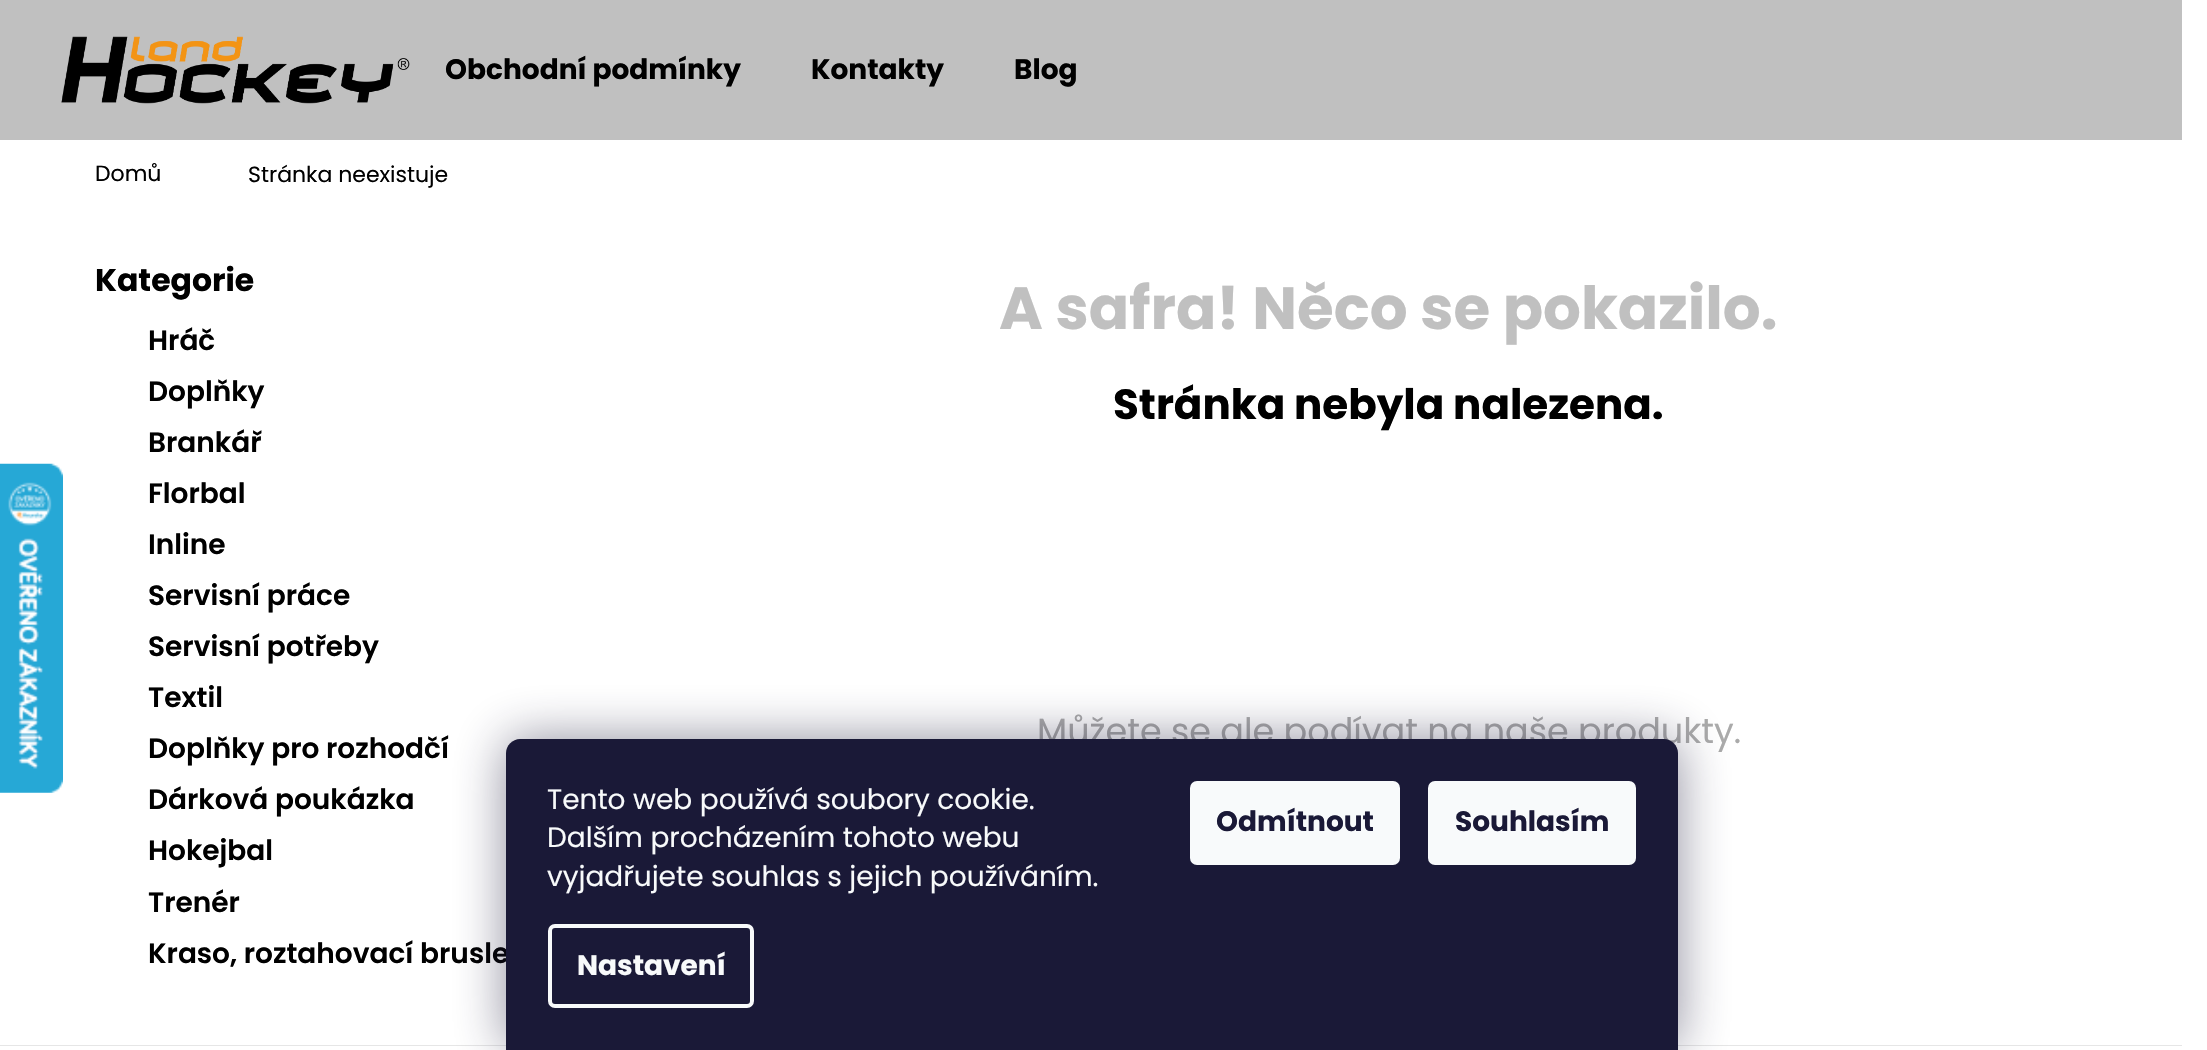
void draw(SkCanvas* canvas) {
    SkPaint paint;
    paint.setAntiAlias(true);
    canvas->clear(0xFFFFFFFF);
    canvas->drawImageRect(SkImages::DeferredFromEncodedData(SkData::MakeFromFileName("img1.png")), SkRect::MakeXYWH(0, 463, 63, 330), SkSamplingOptions());
    paint.setColor(0xFFC0C0C0);
    canvas->drawRect(SkRect::MakeXYWH(0, 0, 2182, 140), paint);
    canvas->drawImageRect(SkImages::DeferredFromEncodedData(SkData::MakeFromFileName("img2.png")), SkRect::MakeXYWH(61, 36, 349, 68), SkSamplingOptions());
    SkFont font1(fontMgr->matchFamilyStyle("Poppins", SkFontStyle::Bold()), 28);
    font1.setSubpixel(true);
    paint.setColor(0xFF000000);
    canvas->drawString("Obchodní podmínky", 445, 79, font1, paint);
    canvas->drawString("Kontakty", 811, 79, font1, paint);
    canvas->drawString("Blog", 1014, 79, font1, paint);
    SkFont font2(fontMgr->matchFamilyStyle("Poppins", SkFontStyle::Normal()), 22);
    font2.setSubpixel(true);
    canvas->drawString("Domů", 95, 181, font2, paint);
    canvas->drawString("Stránka neexistuje", 248, 182, font2, paint);
    SkFont font3(fontMgr->matchFamilyStyle("Poppins", SkFontStyle::Bold()), 31.5f);
    font3.setSubpixel(true);
    canvas->drawString("Kategorie", 95, 291, font3, paint);
    SkFont font4(fontMgr->matchFamilyStyle("Poppins", SkFontStyle(600, SkFontStyle::kNormal_Width, SkFontStyle::kUpright_Slant)), 28);
    font4.setSubpixel(true);
    canvas->drawString("Hráč", 148, 350, font4, paint);
    canvas->drawString("Doplňky", 148, 401, font4, paint);
    canvas->drawString("Brankář", 148, 452, font4, paint);
    canvas->drawString("Florbal", 148, 503, font4, paint);
    canvas->drawString("Inline", 148, 554, font4, paint);
    canvas->drawString("Servisní práce", 148, 605, font4, paint);
    canvas->drawString("Servisní potřeby", 148, 656, font4, paint);
    canvas->drawString("Textil", 148, 707, font4, paint);
    canvas->drawString("Doplňky pro rozhodčí", 148, 758, font4, paint);
    canvas->drawString("Dárková poukázka", 148, 809, font4, paint);
    canvas->drawString("Hokejbal", 148, 860, font4, paint);
    canvas->drawString("Trenér", 148, 912, font4, paint);
    canvas->drawString("Kraso, roztahovací brusle", 148, 963, font4, paint);
    SkFont font5(fontMgr->matchFamilyStyle("Poppins", SkFontStyle::Bold()), 59.5f);
    font5.setSubpixel(true);
    paint.setColor(0xFFC0C0C0);
    canvas->drawString("A safra! Něco se pokazilo.", 999, 329, font5, paint);
    SkFont font6(fontMgr->matchFamilyStyle("Poppins", SkFontStyle::Bold()), 42);
    font6.setSubpixel(true);
    paint.setColor(0xFF000000);
    canvas->drawString("Stránka nebyla nalezena.", 1113, 419, font6, paint);
    SkFont font7(fontMgr->matchFamilyStyle("Poppins", SkFontStyle::Normal()), 35);
    font7.setSubpixel(true);
    paint.setColor(0xFFAAAAAA);
    canvas->drawString("Můžete se ale podívat na naše produkty.", 1037, 743, font7, paint);
    paint.setColor(0xFFE6E6E6);
    canvas->drawRect(SkRect::MakeXYWH(0, 1045, 2182, 1), paint);
    paint.setColor(0x801B1939);
    paint.setMaskFilter(SkMaskFilter::MakeBlur(kNormal_SkBlurStyle, 26));
    canvas->drawRoundRect(SkRect::MakeXYWH(506, 739, 1172, 311), 14, 14, paint);
    paint.setMaskFilter(nullptr);
    paint.setColor(0xFF1A1937);
    canvas->drawPath(SkPathBuilder().moveTo(520, 739).lineTo(1664, 739).cubicTo(1671.5f, 739, 1678, 745.5f, 1678, 753).lineTo(1678, 1050).lineTo(506, 1050).lineTo(506, 753).cubicTo(506, 745.5f, 512.5f, 739, 520, 739).close().detach(), paint);
    SkFont font8(fontMgr->matchFamilyStyle("Poppins", SkFontStyle::Normal()), 28);
    font8.setSubpixel(true);
    paint.setColor(0xFFF8FAFB);
    canvas->drawString("Tento web používá soubory cookie.", 547, 809, font8, paint);
    canvas->drawString("Dalším procházením tohoto webu", 547, 847, font8, paint);
    canvas->drawString("vyjadřujete souhlas s jejich používáním.", 547, 886, font8, paint);
    paint.setStyle(SkPaint::kStroke_Style);
    paint.setStrokeWidth(4);
    canvas->drawRoundRect(SkRect::MakeXYWH(550, 926, 202, 80), 5, 5, paint);
    paint.setStyle(SkPaint::kFill_Style);
    canvas->drawString("Nastavení", 577, 975, font1, paint);
    canvas->drawRoundRect(SkRect::MakeXYWH(1190, 781, 210, 84), 7, 7, paint);
    paint.setColor(0xFF1A1937);
    canvas->drawString("Odmítnout", 1216, 831, font1, paint);
    paint.setColor(0xFFF8FAFB);
    canvas->drawRoundRect(SkRect::MakeXYWH(1428, 781, 208, 84), 7, 7, paint);
    paint.setColor(0xFF1A1937);
    canvas->drawString("Souhlasím", 1455, 831, font1, paint);
}
